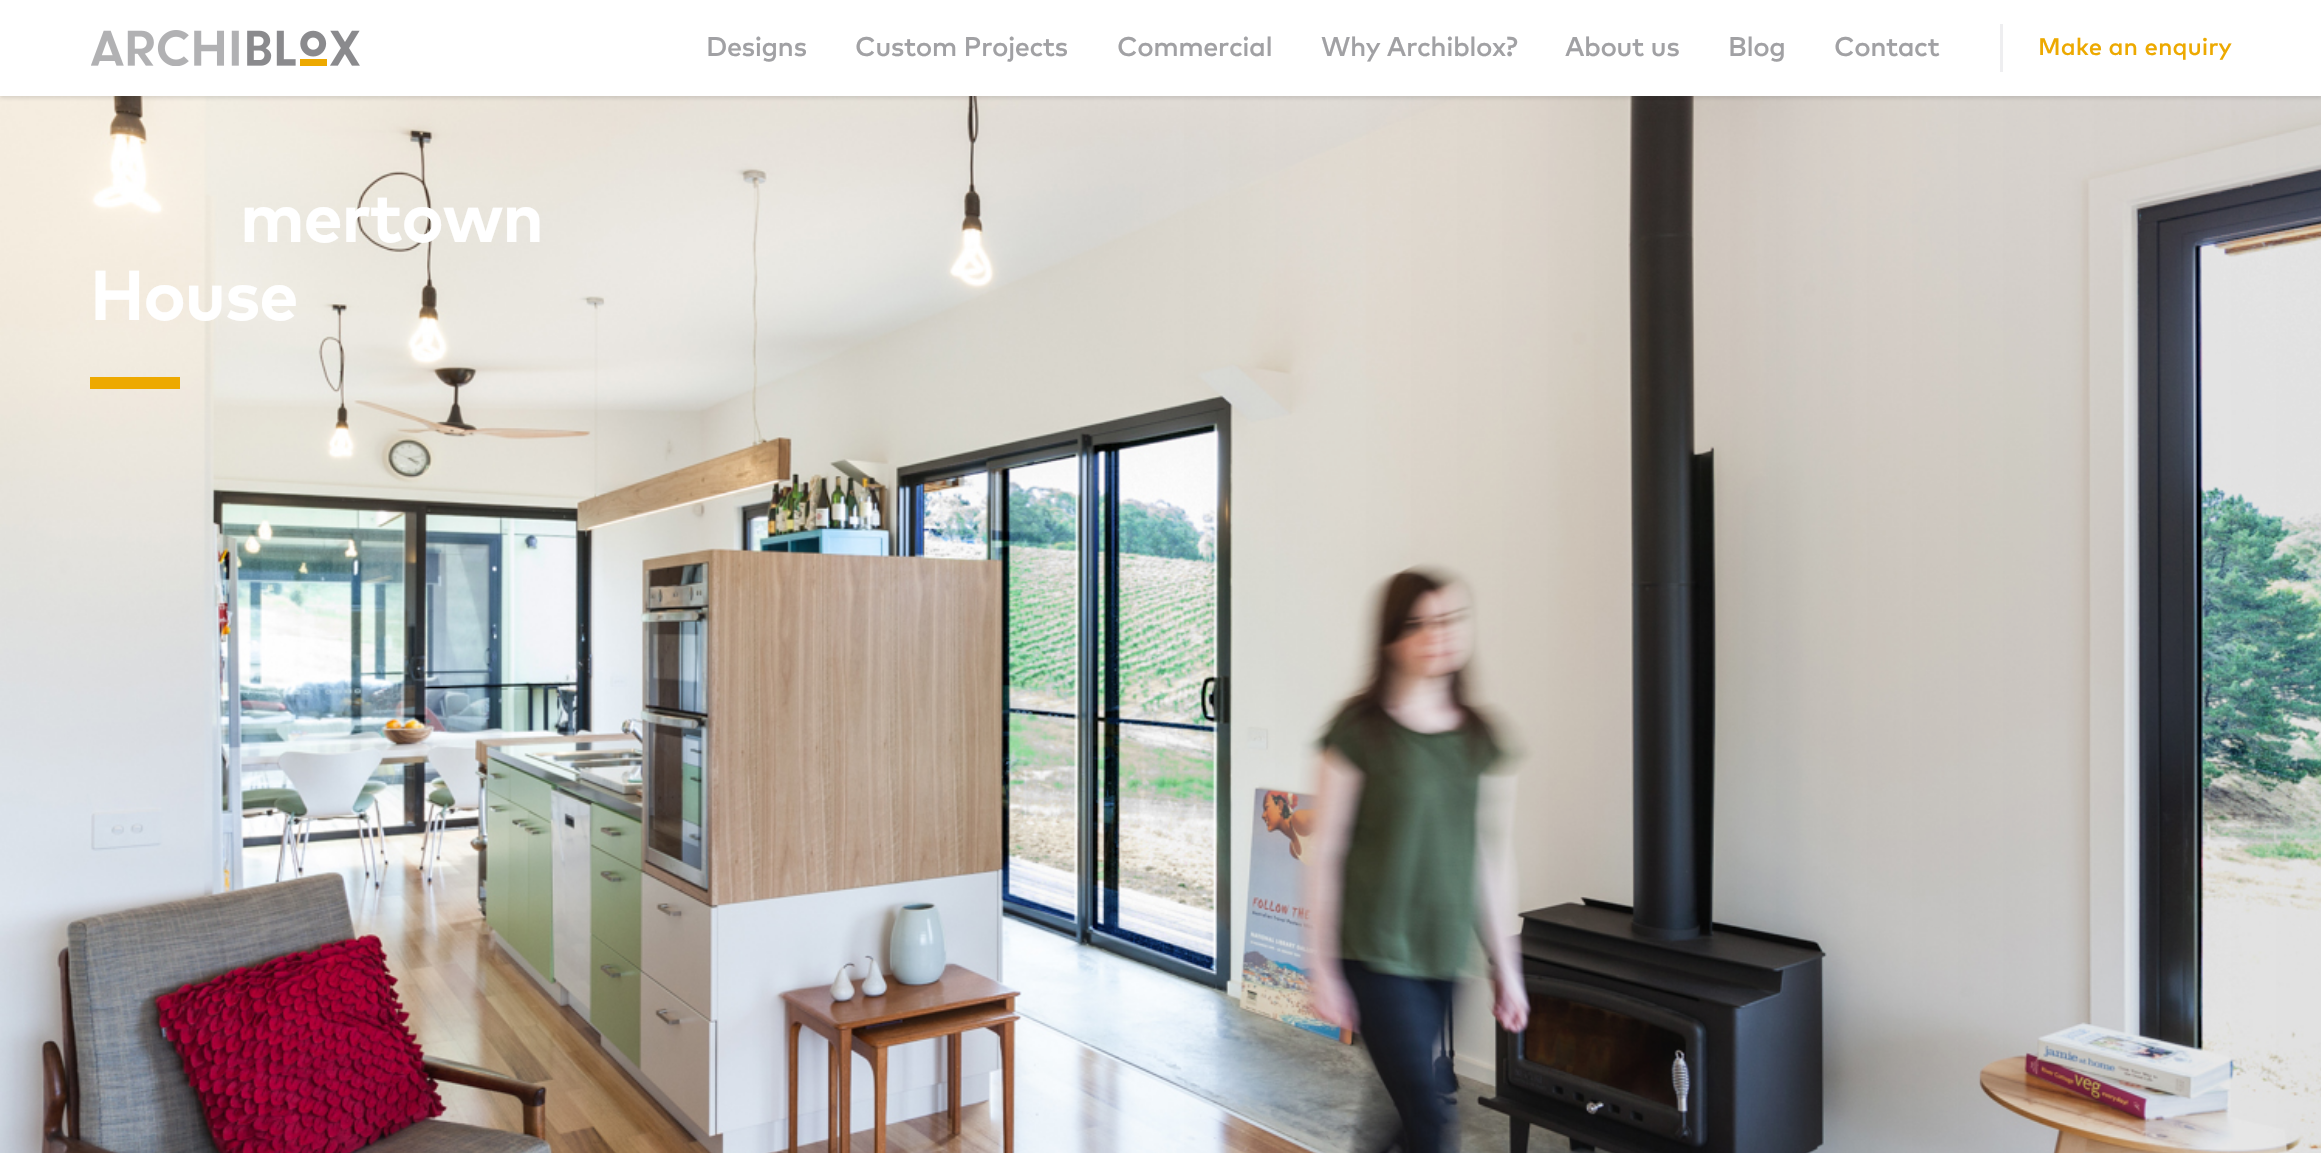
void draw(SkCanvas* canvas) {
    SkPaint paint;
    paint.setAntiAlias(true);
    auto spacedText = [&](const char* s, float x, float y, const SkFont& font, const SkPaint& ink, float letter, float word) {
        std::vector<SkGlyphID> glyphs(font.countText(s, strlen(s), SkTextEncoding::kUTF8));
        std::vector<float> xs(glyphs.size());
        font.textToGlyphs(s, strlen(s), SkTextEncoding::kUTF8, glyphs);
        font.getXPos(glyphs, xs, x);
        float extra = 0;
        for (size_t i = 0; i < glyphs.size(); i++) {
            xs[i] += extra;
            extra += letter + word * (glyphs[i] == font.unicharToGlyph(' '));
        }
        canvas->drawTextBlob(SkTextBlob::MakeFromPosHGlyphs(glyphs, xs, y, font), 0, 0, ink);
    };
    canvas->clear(0xFFFFFFFF);
    canvas->drawImageRect(SkImages::DeferredFromEncodedData(SkData::MakeFromFileName("img2.png")), SkRect::MakeXYWH(0, 96, 2321, 1057), SkSamplingOptions());
    paint.setColor(0x2618181A);
    paint.setMaskFilter(SkMaskFilter::MakeBlur(kNormal_SkBlurStyle, 2));
    canvas->drawRect(SkRect::MakeXYWH(0, 2, 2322, 96), paint);
    paint.setMaskFilter(nullptr);
    paint.setColor(0xFFFFFFFF);
    canvas->drawRect(SkRect::MakeXYWH(0, 0, 2321, 96), paint);
    canvas->drawImageRect(SkImages::DeferredFromEncodedData(SkData::MakeFromFileName("img1.png")), SkRect::MakeXYWH(91, 30, 269, 36), SkSamplingOptions());
    SkFont font1(fontMgr->matchFamilyStyle("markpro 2", SkFontStyle::Normal()), 27);
    font1.setSubpixel(true);
    paint.setColor(0xFFA1A1A4);
    spacedText("Designs", 706, 56, font1, paint, -0.5f, 0);
    spacedText("Custom Projects", 855, 56, font1, paint, -0.5f, 0);
    spacedText("Commercial", 1117, 56, font1, paint, -0.5f, 0);
    spacedText("Why Archiblox?", 1321, 56, font1, paint, -0.5f, 0);
    spacedText("About us", 1565, 56, font1, paint, -0.5f, 0);
    spacedText("Blog", 1728, 56, font1, paint, -0.5f, 0);
    spacedText("Contact", 1834, 56, font1, paint, -0.5f, 0);
    paint.setColor(0xFFEEEEF0);
    canvas->drawRect(SkRect::MakeXYWH(2000, 24, 3, 48), paint);
    SkFont font2(fontMgr->matchFamilyStyle("markpro 2", SkFontStyle::Normal()), 24);
    font2.setSubpixel(true);
    paint.setColor(0xFFEDA900);
    canvas->drawString("Make an enquiry", 2038, 55, font2, paint);
    SkFont font3(fontMgr->matchFamilyStyle("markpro", SkFontStyle::Normal()), 70.5f);
    font3.setSubpixel(true);
    paint.setColor(0xFFFFFFFF);
    spacedText("mertown", 240, 242, font3, paint, -1.25f, 0);
    spacedText("House", 90, 320, font3, paint, -1.25f, 0);
    paint.setColor(0xFFEDA900);
    canvas->drawRect(SkRect::MakeXYWH(90, 377, 90, 12), paint);
}
